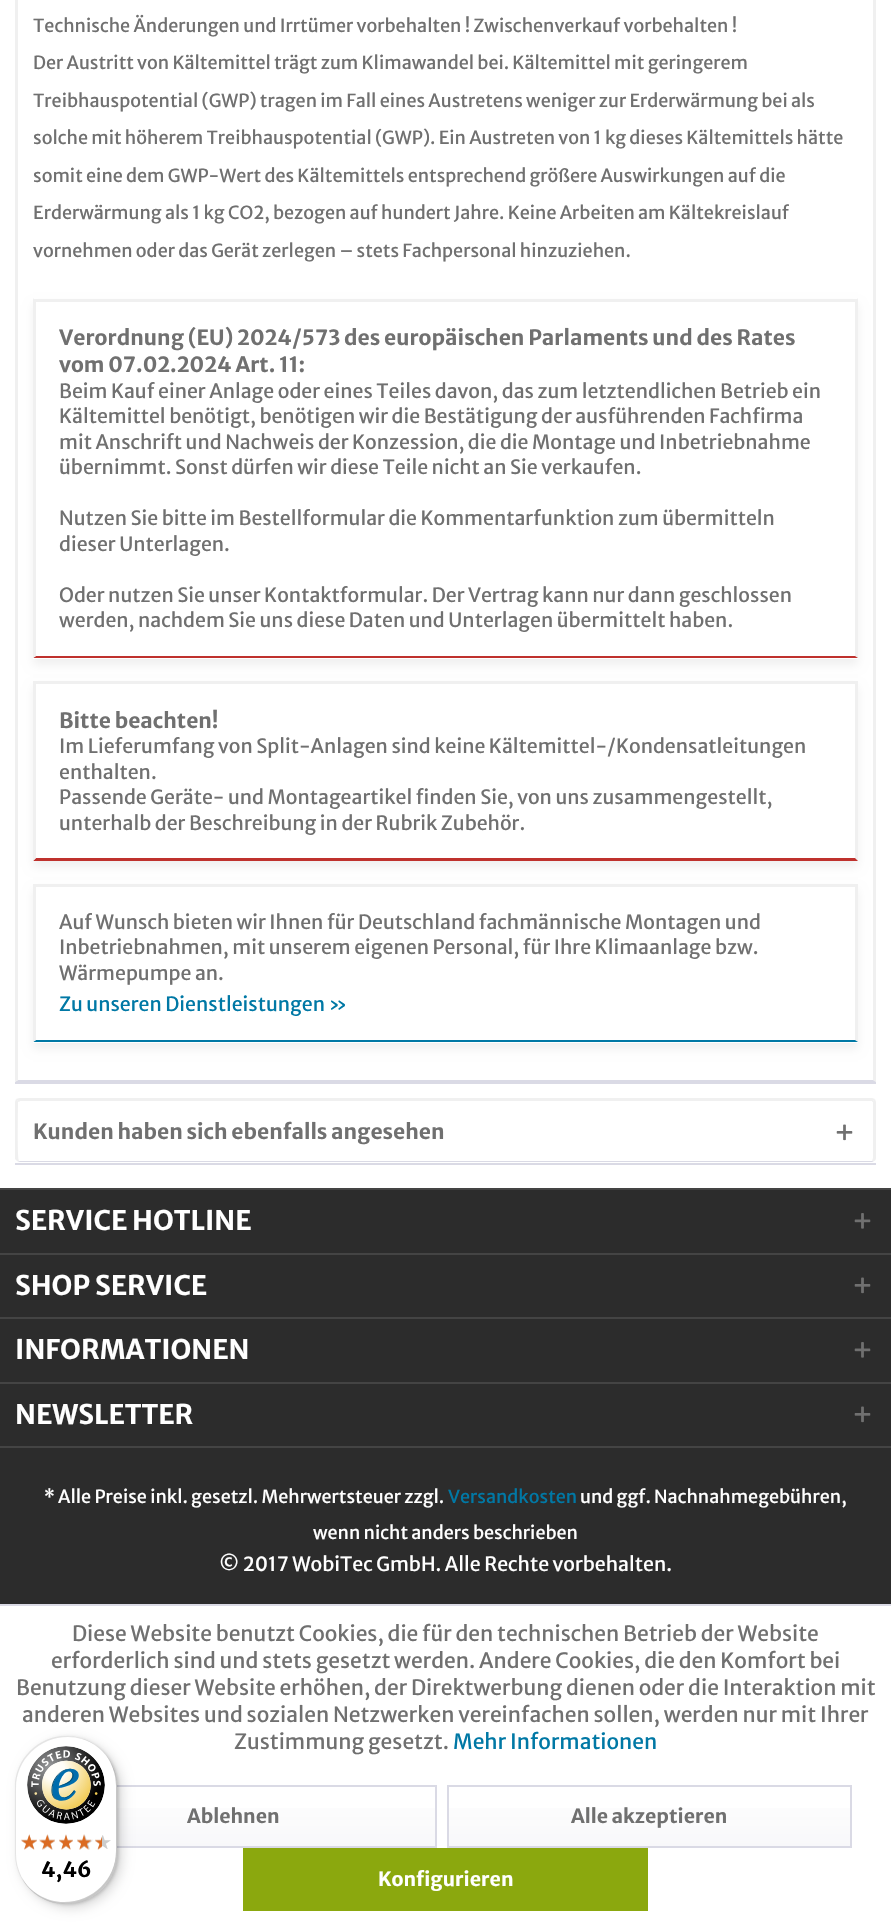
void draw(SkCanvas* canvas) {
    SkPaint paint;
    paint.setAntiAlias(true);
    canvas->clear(0xFFFFFFFF);
    paint.setColor(0xFFDADAE5);
    canvas->drawRect(SkRect::MakeXYWH(15, 1082, 861, 2), paint);
    paint.setColor(0xFFF0F0F0);
    canvas->drawPath(SkPathBuilder().moveTo(876, -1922).lineTo(876, 1082).lineTo(873, 1080).lineTo(873, -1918).close().detach(), paint);
    paint.setColor(0xFFDADAE5);
    canvas->drawPath(SkPathBuilder().moveTo(876, 1082).lineTo(15, 1082).lineTo(18, 1080).lineTo(873, 1080).close().detach(), paint);
    paint.setColor(0xFFF0F0F0);
    canvas->drawPath(SkPathBuilder().moveTo(15, 1082).lineTo(15, -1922).lineTo(18, -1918).lineTo(18, 1080).close().detach(), paint);
    SkFont font1(fontMgr->matchFamilyStyle("Merriweather Sans", SkFontStyle::Normal()), 18);
    font1.setSubpixel(true);
    paint.setColor(0xFF707070);
    canvas->drawString("Technische Änderungen und Irrtümer vorbehalten ! Zwischenverkauf vorbehalten !", 33, 32, font1, paint);
    canvas->drawString("Der Austritt von Kältemittel trägt zum Klimawandel bei. Kältemittel mit geringerem", 33, 69, font1, paint);
    canvas->drawString("Treibhauspotential (GWP) tragen im Fall eines Austretens weniger zur Erderwärmung bei als", 33, 107, font1, paint);
    canvas->drawString("solche mit höherem Treibhauspotential (GWP). Ein Austreten von 1 kg dieses Kältemittels hätte", 33, 144, font1, paint);
    canvas->drawString("somit eine dem GWP-Wert des Kältemittels entsprechend größere Auswirkungen auf die", 33, 182, font1, paint);
    canvas->drawString("Erderwärmung als 1 kg CO2, bezogen auf hundert Jahre. Keine Arbeiten am Kältekreislauf", 33, 219, font1, paint);
    canvas->drawString("vornehmen oder das Gerät zerlegen – stets Fachpersonal hinzuziehen.", 33, 257, font1, paint);
    canvas->save();
    canvas->clipPath(SkPathBuilder(SkPathFillType::kEvenOdd).moveTo(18, 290).lineTo(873, 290).lineTo(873, 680).lineTo(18, 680).close().moveTo(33, 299).lineTo(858, 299).lineTo(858, 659).lineTo(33, 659).close().detach(), true);
    paint.setColor(0xFFF0F0F0);
    paint.setMaskFilter(SkMaskFilter::MakeBlur(kNormal_SkBlurStyle, 4.5f));
    canvas->drawRect(SkRect::MakeXYWH(33, 305, 825, 360), paint);
    paint.setMaskFilter(nullptr);
    canvas->restore();
    canvas->drawRect(SkRect::MakeXYWH(33, 299, 825, 3), paint);
    canvas->drawPath(SkPathBuilder().moveTo(858, 298).lineTo(858, 658).lineTo(855, 656).lineTo(855, 302).close().detach(), paint);
    paint.setColor(0xFFBF312D);
    canvas->drawPath(SkPathBuilder().moveTo(858, 658).lineTo(33, 658).lineTo(36, 656).lineTo(855, 656).close().detach(), paint);
    paint.setColor(0xFFF0F0F0);
    canvas->drawPath(SkPathBuilder().moveTo(33, 658).lineTo(33, 298).lineTo(36, 302).lineTo(36, 656).close().detach(), paint);
    SkFont font2(fontMgr->matchFamilyStyle("Merriweather Sans", SkFontStyle::Bold()), 21);
    font2.setSubpixel(true);
    paint.setColor(0xFF707070);
    canvas->drawString("Verordnung (EU) 2024/573 des europäischen Parlaments und des Rates", 59, 345, font2, paint);
    canvas->drawString("vom 07.02.2024 Art. 11:", 59, 372, font2, paint);
    SkFont font3(fontMgr->matchFamilyStyle("Merriweather Sans", SkFontStyle::Normal()), 19.5f);
    font3.setSubpixel(true);
    canvas->drawString("Beim Kauf einer Anlage oder eines Teiles davon, das zum letztendlichen Betrieb ein", 59, 398, font3, paint);
    canvas->drawString("Kältemittel benötigt, benötigen wir die Bestätigung der ausführenden Fachfirma", 59, 423, font3, paint);
    canvas->drawString("mit Anschrift und Nachweis der Konzession, die die Montage und Inbetriebnahme", 59, 449, font3, paint);
    canvas->drawString("übernimmt. Sonst dürfen wir diese Teile nicht an Sie verkaufen.", 59, 474, font3, paint);
    canvas->drawString("Nutzen Sie bitte im Bestellformular die Kommentarfunktion zum übermitteln", 59, 525, font3, paint);
    canvas->drawString("dieser Unterlagen.", 59, 551, font3, paint);
    canvas->drawString("Oder nutzen Sie unser Kontaktformular. Der Vertrag kann nur dann geschlossen", 59, 602, font3, paint);
    canvas->drawString("werden, nachdem Sie uns diese Daten und Unterlagen übermittelt haben.", 59, 627, font3, paint);
    canvas->save();
    canvas->clipPath(SkPathBuilder(SkPathFillType::kEvenOdd).moveTo(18, 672).lineTo(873, 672).lineTo(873, 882).lineTo(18, 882).close().moveTo(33, 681).lineTo(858, 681).lineTo(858, 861).lineTo(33, 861).close().detach(), true);
    paint.setColor(0xFFF0F0F0);
    paint.setMaskFilter(SkMaskFilter::MakeBlur(kNormal_SkBlurStyle, 4.5f));
    canvas->drawRect(SkRect::MakeXYWH(33, 687, 825, 180), paint);
    paint.setMaskFilter(nullptr);
    canvas->restore();
    canvas->drawRect(SkRect::MakeXYWH(33, 681, 825, 3), paint);
    canvas->drawPath(SkPathBuilder().moveTo(858, 681).lineTo(858, 861).lineTo(855, 858).lineTo(855, 684).close().detach(), paint);
    paint.setColor(0xFFBF312D);
    canvas->drawPath(SkPathBuilder().moveTo(858, 861).lineTo(33, 861).lineTo(36, 858).lineTo(855, 858).close().detach(), paint);
    paint.setColor(0xFFF0F0F0);
    canvas->drawPath(SkPathBuilder().moveTo(33, 861).lineTo(33, 681).lineTo(36, 684).lineTo(36, 858).close().detach(), paint);
    paint.setColor(0xFF707070);
    canvas->drawString("Bitte beachten!", 59, 728, font2, paint);
    canvas->drawString("Im Lieferumfang von Split-Anlagen sind keine Kältemittel-/Kondensatleitungen", 59, 753, font3, paint);
    canvas->drawString("enthalten.", 59, 779, font3, paint);
    canvas->drawString("Passende Geräte- und Montageartikel finden Sie, von uns zusammengestellt,", 59, 804, font3, paint);
    canvas->drawString("unterhalb der Beschreibung in der Rubrik Zubehör.", 59, 830, font3, paint);
    canvas->save();
    canvas->clipPath(SkPathBuilder(SkPathFillType::kEvenOdd).moveTo(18, 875).lineTo(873, 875).lineTo(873, 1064).lineTo(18, 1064).close().moveTo(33, 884).lineTo(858, 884).lineTo(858, 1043).lineTo(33, 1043).close().detach(), true);
    paint.setColor(0xFFF0F0F0);
    paint.setMaskFilter(SkMaskFilter::MakeBlur(kNormal_SkBlurStyle, 4.5f));
    canvas->drawRect(SkRect::MakeXYWH(33, 890, 825, 159), paint);
    paint.setMaskFilter(nullptr);
    canvas->restore();
    canvas->drawRect(SkRect::MakeXYWH(33, 884, 825, 3), paint);
    canvas->drawPath(SkPathBuilder().moveTo(858, 884).lineTo(858, 1042).lineTo(855, 1040).lineTo(855, 886).close().detach(), paint);
    paint.setColor(0xFF0078A5);
    canvas->drawPath(SkPathBuilder().moveTo(858, 1042).lineTo(33, 1042).lineTo(36, 1040).lineTo(855, 1040).close().detach(), paint);
    paint.setColor(0xFFF0F0F0);
    canvas->drawPath(SkPathBuilder().moveTo(33, 1042).lineTo(33, 884).lineTo(36, 886).lineTo(36, 1040).close().detach(), paint);
    paint.setColor(0xFF707070);
    canvas->drawString("Auf Wunsch bieten wir Ihnen für Deutschland fachmännische Montagen und", 59, 929, font3, paint);
    canvas->drawString("Inbetriebnahmen, mit unserem eigenen Personal, für Ihre Klimaanlage bzw.", 59, 954, font3, paint);
    canvas->drawString("Wärmepumpe an.", 59, 980, font3, paint);
    paint.setColor(0xFF0078A5);
    canvas->drawString("Zu unseren Dienstleistungen »", 59, 1011, font3, paint);
    paint.setColor(0xFFDADAE5);
    canvas->drawRect(SkRect::MakeXYWH(15, 1163, 861, 2), paint);
    paint.setColor(0xFFF0F0F0);
    canvas->drawPath(SkPathBuilder().moveTo(20, 1098).cubicTo(18, 1098, 17, 1099, 16, 1099).lineTo(19, 1102).lineTo(20, 1101).lineTo(872, 1101).lineTo(872, 1102).lineTo(875, 1099).lineTo(872, 1098).close().detach(), paint);
    canvas->drawPath(SkPathBuilder().moveTo(876, 1158).lineTo(876, 1102).lineTo(875, 1099).lineTo(872, 1102).lineTo(873, 1102).lineTo(873, 1158).lineTo(872, 1161).lineTo(874, 1161).cubicTo(875, 1161, 876, 1159, 876, 1158).close().detach(), paint);
    paint.setColor(0xFFDADAE5);
    canvas->drawPath(SkPathBuilder().moveTo(874, 1161).lineTo(872, 1162).lineTo(20, 1162).lineTo(17, 1161).lineTo(19, 1161).lineTo(20, 1161).lineTo(872, 1161).close().detach(), paint);
    paint.setColor(0xFFF0F0F0);
    canvas->drawPath(SkPathBuilder().moveTo(15, 1102).lineTo(15, 1159).lineTo(17, 1161).lineTo(19, 1161).cubicTo(17, 1159, 18, 1109, 18, 1102).lineTo(19, 1102).lineTo(16, 1099).close().detach(), paint);
    paint.setColor(0xFF707070);
    canvas->drawString("Kunden haben sich ebenfalls angesehen", 33, 1139, font2, paint);
    canvas->drawImageRect(SkImages::DeferredFromEncodedData(SkData::MakeFromFileName("img1.png")), SkRect::MakeXYWH(836, 1124, 17, 17), SkSamplingOptions());
    paint.setColor(0xFF2C2C2C);
    canvas->drawRect(SkRect::MakeXYWH(0, 1190, 891, 414), paint);
    paint.setColor(0xFF444444);
    canvas->drawRect(SkRect::MakeXYWH(0, 1188, 891, 2), paint);
    SkFont font4(fontMgr->matchFamilyStyle("Merriweather Sans", SkFontStyle::Bold()), 27);
    font4.setSubpixel(true);
    paint.setColor(0xFFFFFFFF);
    canvas->drawString("SERVICE HOTLINE", 15, 1230, font4, paint);
    canvas->drawImageRect(SkImages::DeferredFromEncodedData(SkData::MakeFromFileName("img2.png")), SkRect::MakeXYWH(854, 1213, 17, 16), SkSamplingOptions());
    paint.setColor(0xFF444444);
    canvas->drawRect(SkRect::MakeXYWH(0, 1253, 891, 2), paint);
    paint.setColor(0xFFFFFFFF);
    canvas->drawString("SHOP SERVICE", 15, 1295, font4, paint);
    canvas->drawImageRect(SkImages::DeferredFromEncodedData(SkData::MakeFromFileName("img3.png")), SkRect::MakeXYWH(854, 1277, 17, 17), SkSamplingOptions());
    paint.setColor(0xFF444444);
    canvas->drawRect(SkRect::MakeXYWH(0, 1317, 891, 2), paint);
    paint.setColor(0xFFFFFFFF);
    canvas->drawString("INFORMATIONEN", 15, 1359, font4, paint);
    canvas->drawImageRect(SkImages::DeferredFromEncodedData(SkData::MakeFromFileName("img2.png")), SkRect::MakeXYWH(854, 1342, 17, 16), SkSamplingOptions());
    paint.setColor(0xFF444444);
    canvas->drawRect(SkRect::MakeXYWH(0, 1382, 891, 2), paint);
    canvas->drawRect(SkRect::MakeXYWH(0, 1446, 891, 2), paint);
    paint.setColor(0xFFFFFFFF);
    canvas->drawString("NEWSLETTER", 15, 1424, font4, paint);
    canvas->drawImageRect(SkImages::DeferredFromEncodedData(SkData::MakeFromFileName("img3.png")), SkRect::MakeXYWH(854, 1406, 17, 17), SkSamplingOptions());
    canvas->drawString("* Alle Preise inkl. gesetzl. Mehrwertsteuer zzgl.", 44, 1503, font1, paint);
    paint.setColor(0xFF0078A5);
    canvas->drawString("Versandkosten", 448, 1503, font1, paint);
    paint.setColor(0xFFFFFFFF);
    canvas->drawString("und ggf. Nachnahmegebühren,", 580, 1503, font1, paint);
    canvas->drawString("wenn nicht anders beschrieben", 313, 1539, font1, paint);
    canvas->drawString("© 2017 WobiTec GmbH. Alle Rechte vorbehalten.", 219, 1571, font3, paint);
    paint.setColor(0xFFDADAE5);
    canvas->drawRect(SkRect::MakeXYWH(0, 1604, 891, 2), paint);
    SkFont font5(fontMgr->matchFamilyStyle("Merriweather Sans", SkFontStyle::Normal()), 21);
    font5.setSubpixel(true);
    paint.setColor(0xFF707070);
    canvas->drawString("Diese Website benutzt Cookies, die für den technischen Betrieb der Website", 72, 1641, font5, paint);
    canvas->drawString("erforderlich sind und stets gesetzt werden. Andere Cookies, die den Komfort bei", 51, 1668, font5, paint);
    canvas->drawString("Benutzung dieser Website erhöhen, der Direktwerbung dienen oder die Interaktion mit", 16, 1695, font5, paint);
    canvas->drawString("anderen Websites und sozialen Netzwerken vereinfachen sollen, werden nur mit Ihrer", 22, 1722, font5, paint);
    canvas->drawString("Zustimmung gesetzt.", 234, 1749, font5, paint);
    paint.setColor(0xFF0078A5);
    canvas->drawString("Mehr Informationen", 453, 1749, font5, paint);
    {
        const SkColor colors[] = {0xFFFFFFFF, 0xFFF8F8FA};
        const float stops[] = {0, 1};
        const SkPoint ends[] = {{234, 1787}, {234, 1847}};
        paint.setShader(SkGradientShader::MakeLinear(ends, colors, stops, 2, SkTileMode::kClamp));
        paint.setAlpha(255);
    }
    canvas->drawRect(SkRect::MakeXYWH(117, 1808, 318, 38), paint);
    paint.setStyle(SkPaint::kStroke_Style);
    paint.setStrokeWidth(2);
    paint.setShader(nullptr);
    paint.setColor(0xFFDADAE5);
    canvas->drawRect(SkRect::MakeXYWH(33, 1786, 403, 61), paint);
    SkFont font6(fontMgr->matchFamilyStyle("Merriweather Sans", SkFontStyle::Bold()), 19.5f);
    font6.setSubpixel(true);
    paint.setStyle(SkPaint::kFill_Style);
    paint.setColor(0xFF707070);
    canvas->drawString("Ablehnen", 187, 1823, font6, paint);
    {
        const SkColor colors[] = {0xFFFFFFFF, 0xFFF8F8FA};
        const float stops[] = {0, 1};
        const SkPoint ends[] = {{650, 1787}, {650, 1847}};
        paint.setShader(SkGradientShader::MakeLinear(ends, colors, stops, 2, SkTileMode::kClamp));
        paint.setAlpha(255);
    }
    canvas->drawRect(SkRect::MakeXYWH(449, 1808, 401, 38), paint);
    paint.setStyle(SkPaint::kStroke_Style);
    paint.setShader(nullptr);
    paint.setColor(0xFFDADAE5);
    canvas->drawRect(SkRect::MakeXYWH(448, 1786, 403, 61), paint);
    paint.setStyle(SkPaint::kFill_Style);
    paint.setColor(0xFF707070);
    canvas->drawString("Alle akzeptieren", 571, 1823, font6, paint);
    paint.setColor(0xFF8BA80E);
    canvas->drawRect(SkRect::MakeXYWH(243, 1848, 405, 63), paint);
    paint.setColor(0xFFFFFFFF);
    canvas->drawString("Konfigurieren", 378, 1886, font6, paint);
    paint.setColor(0x26000000);
    paint.setMaskFilter(SkMaskFilter::MakeBlur(kNormal_SkBlurStyle, 6));
    canvas->drawRoundRect(SkRect::MakeXYWH(20, 1740, 102, 168), 51, 51, paint);
    paint.setMaskFilter(nullptr);
    paint.setMaskFilter(SkMaskFilter::MakeBlur(kNormal_SkBlurStyle, 1.5f));
    canvas->drawRoundRect(SkRect::MakeXYWH(17, 1737, 102, 168), 51, 51, paint);
    paint.setMaskFilter(nullptr);
    paint.setColor(0xFFFFFFFF);
    canvas->drawRoundRect(SkRect::MakeXYWH(15, 1736, 102, 168), 51, 51, paint);
    paint.setColor(0x1A000000);
    canvas->drawPath(SkPathBuilder().moveTo(68, 1737).cubicTo(78, 1737, 86, 1740, 94, 1744).cubicTo(86, 1739, 76, 1736, 66, 1736).cubicTo(38, 1736, 15, 1759, 15, 1787).lineTo(15, 1853).cubicTo(15, 1870, 23, 1885, 36, 1894).cubicTo(24, 1885, 16, 1870, 16, 1854).lineTo(16, 1788).cubicTo(16, 1760, 39, 1737, 68, 1737).close().detach(), paint);
    paint.setColor(0x33000000);
    canvas->drawPath(SkPathBuilder().moveTo(22, 1878).cubicTo(30, 1894, 47, 1904, 66, 1904).cubicTo(94, 1904, 117, 1881, 117, 1853).lineTo(117, 1787).cubicTo(117, 1778, 115, 1769, 110, 1762).cubicTo(114, 1769, 116, 1777, 116, 1785).lineTo(116, 1851).cubicTo(116, 1879, 93, 1902, 64, 1902).cubicTo(46, 1902, 30, 1892, 22, 1878).close().detach(), paint);
    paint.setColor(0x33323232);
    canvas->drawPath(SkPathBuilder().moveTo(27, 1886).cubicTo(37, 1897, 51, 1904, 66, 1904).cubicTo(94, 1904, 117, 1881, 117, 1853).lineTo(117, 1787).cubicTo(117, 1775, 113, 1764, 106, 1755).cubicTo(112, 1764, 116, 1774, 116, 1786).lineTo(116, 1852).cubicTo(116, 1880, 93, 1903, 65, 1903).cubicTo(50, 1903, 37, 1897, 27, 1886).close().detach(), paint);
    paint.setColor(0x4DFFFFFF);
    canvas->drawPath(SkPathBuilder().moveTo(27, 1886).cubicTo(37, 1897, 51, 1904, 66, 1904).cubicTo(94, 1904, 117, 1881, 117, 1853).lineTo(117, 1787).cubicTo(117, 1772, 110, 1758, 99, 1748).cubicTo(110, 1758, 116, 1771, 116, 1786).lineTo(116, 1852).cubicTo(116, 1880, 93, 1903, 65, 1903).cubicTo(50, 1903, 37, 1897, 27, 1886).close().detach(), paint);
    canvas->drawImageRect(SkImages::DeferredFromEncodedData(SkData::MakeFromFileName("img4.png")), SkRect::MakeXYWH(27, 1746, 78, 78), SkSamplingOptions());
    canvas->drawImageRect(SkImages::DeferredFromEncodedData(SkData::MakeFromFileName("img5.png")), SkRect::MakeXYWH(21, 1835, 16, 14), SkSamplingOptions());
    canvas->drawImageRect(SkImages::DeferredFromEncodedData(SkData::MakeFromFileName("img6.png")), SkRect::MakeXYWH(41, 1835, 14, 15), SkSamplingOptions());
    canvas->drawImageRect(SkImages::DeferredFromEncodedData(SkData::MakeFromFileName("img7.png")), SkRect::MakeXYWH(59, 1835, 14, 14), SkSamplingOptions());
    canvas->drawImageRect(SkImages::DeferredFromEncodedData(SkData::MakeFromFileName("img8.png")), SkRect::MakeXYWH(77, 1834, 16, 16), SkSamplingOptions());
    canvas->drawImageRect(SkImages::DeferredFromEncodedData(SkData::MakeFromFileName("img9.png")), SkRect::MakeXYWH(95, 1835, 16, 14), SkSamplingOptions());
    canvas->drawImageRect(SkImages::DeferredFromEncodedData(SkData::MakeFromFileName("img10.png")), SkRect::MakeXYWH(21, 1834, 16, 16), SkSamplingOptions());
    canvas->drawImageRect(SkImages::DeferredFromEncodedData(SkData::MakeFromFileName("img11.png")), SkRect::MakeXYWH(39, 1834, 16, 16), SkSamplingOptions());
    canvas->drawImageRect(SkImages::DeferredFromEncodedData(SkData::MakeFromFileName("img12.png")), SkRect::MakeXYWH(59, 1834, 14, 16), SkSamplingOptions());
    canvas->drawImageRect(SkImages::DeferredFromEncodedData(SkData::MakeFromFileName("img13.png")), SkRect::MakeXYWH(77, 1834, 14, 16), SkSamplingOptions());
    canvas->drawImageRect(SkImages::DeferredFromEncodedData(SkData::MakeFromFileName("img14.png")), SkRect::MakeXYWH(95, 1836, 7, 14), SkSamplingOptions());
    paint.setColor(0xFF000000);
    canvas->drawString("4,46", 41, 1877, font2, paint);
}
